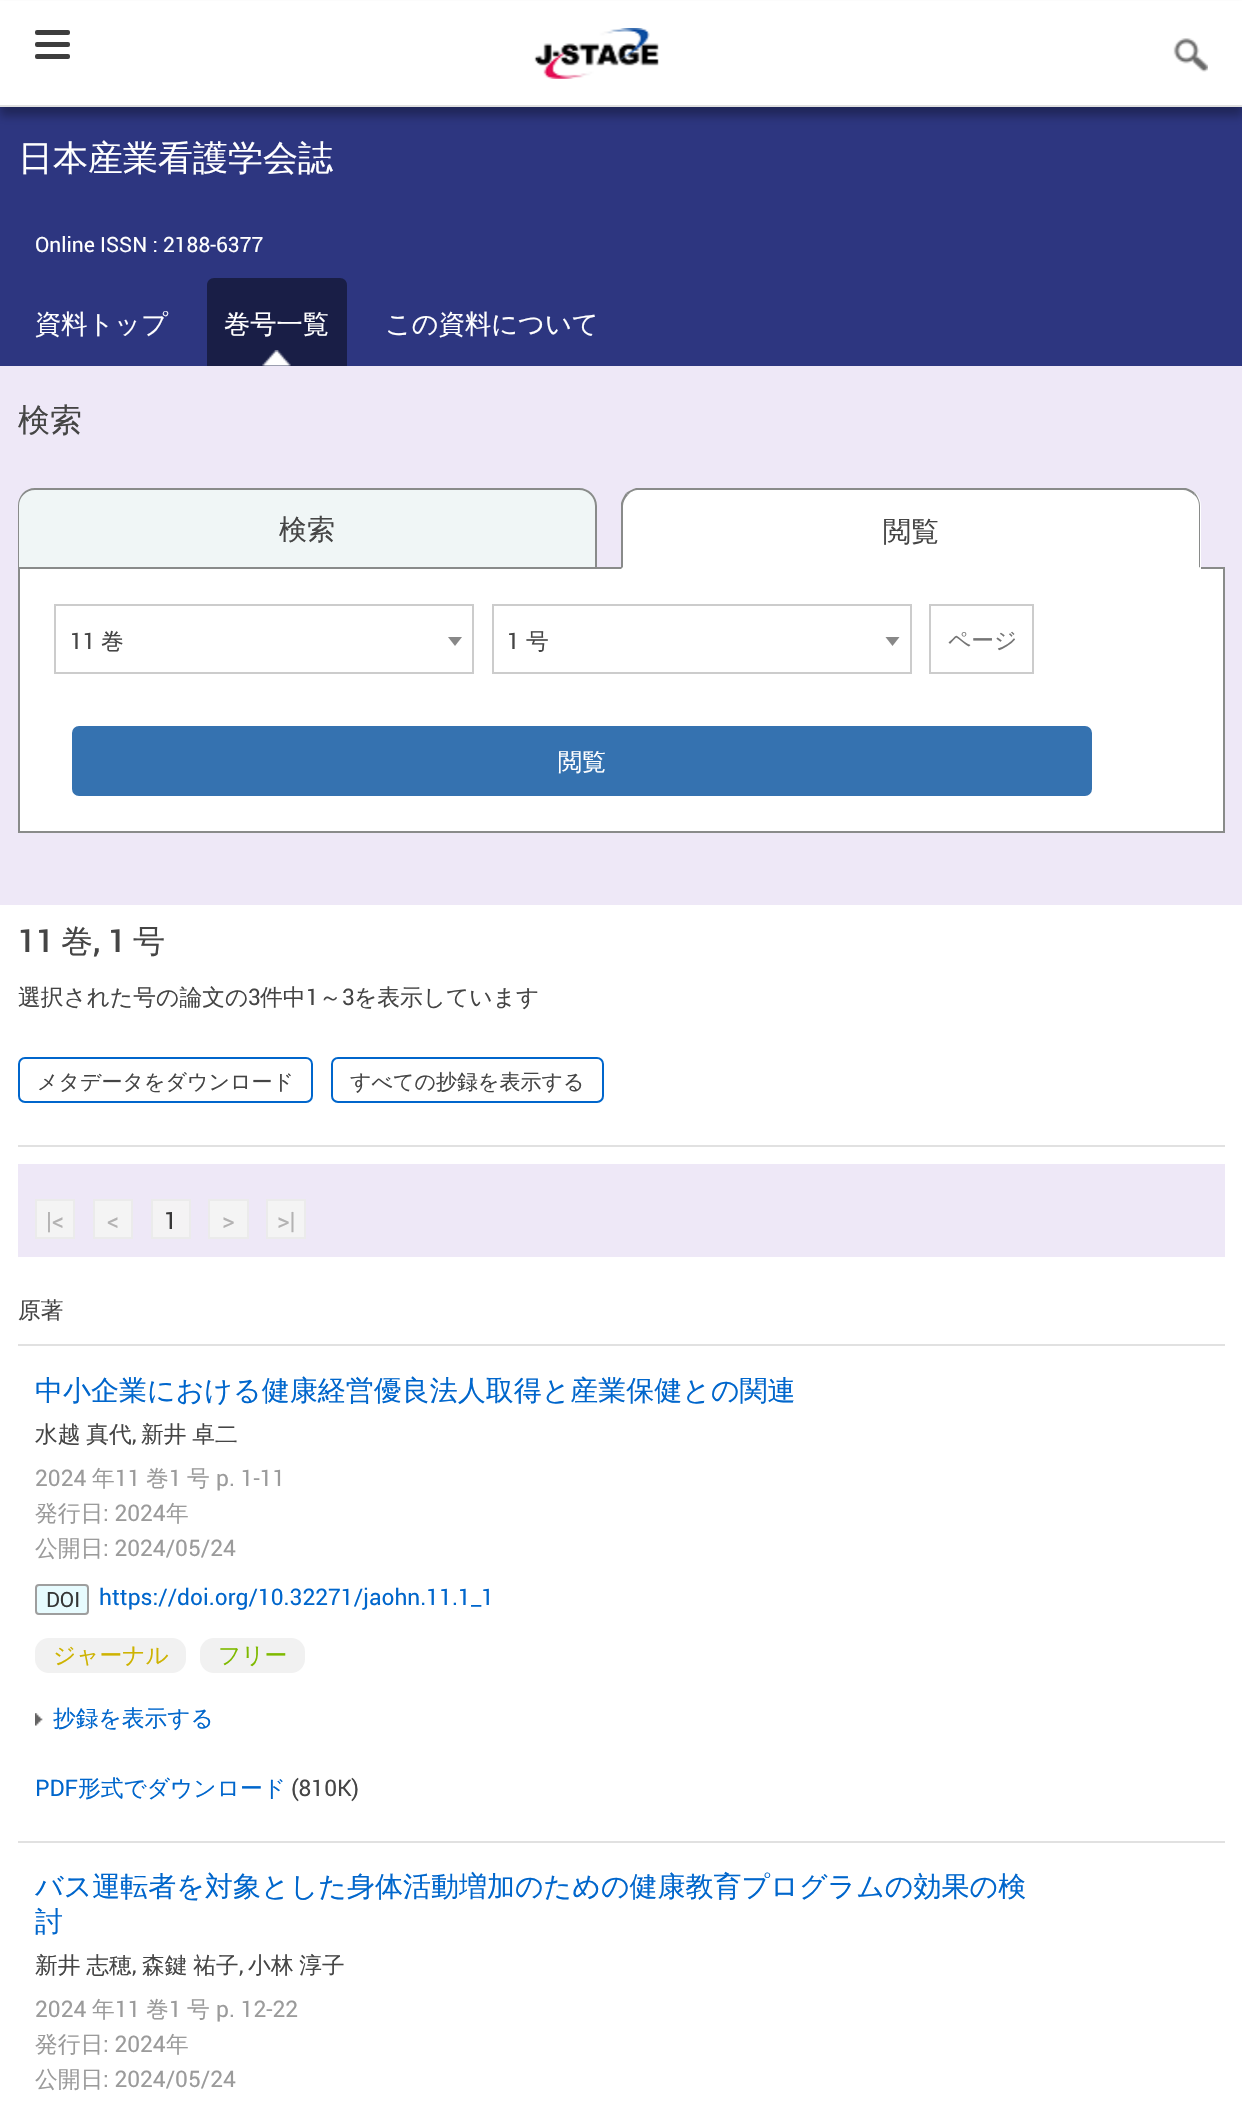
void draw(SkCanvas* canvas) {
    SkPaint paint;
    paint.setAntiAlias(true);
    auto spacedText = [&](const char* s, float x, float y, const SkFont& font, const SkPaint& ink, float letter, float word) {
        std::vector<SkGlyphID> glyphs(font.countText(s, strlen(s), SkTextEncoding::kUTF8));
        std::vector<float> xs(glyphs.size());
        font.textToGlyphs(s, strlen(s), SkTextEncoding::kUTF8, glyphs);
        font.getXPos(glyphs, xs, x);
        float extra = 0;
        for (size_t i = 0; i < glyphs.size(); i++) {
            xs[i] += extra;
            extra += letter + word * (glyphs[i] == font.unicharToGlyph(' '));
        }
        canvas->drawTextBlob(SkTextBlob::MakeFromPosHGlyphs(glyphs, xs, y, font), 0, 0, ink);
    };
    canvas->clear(0xFFFFFFFF);
    paint.setColor(0xFF2D3680);
    canvas->drawRect(SkRect::MakeXYWH(0, 107, 1242, 259), paint);
    paint.setColor(0x4D000000);
    paint.setMaskFilter(SkMaskFilter::MakeBlur(kNormal_SkBlurStyle, 4.5f));
    canvas->drawRect(SkRect::MakeXYWH(0, 9, 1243, 107), paint);
    paint.setMaskFilter(nullptr);
    paint.setColor(0xFFFFFFFF);
    canvas->drawRect(SkRect::MakeXYWH(0, 1, 1242, 104), paint);
    paint.setColor(0xFFE0E0E0);
    canvas->drawRect(SkRect::MakeXYWH(0, 105, 1242, 2), paint);
    paint.setColor(0xFF3D3D3D);
    canvas->drawRoundRect(SkRect::MakeXYWH(35, 30, 35, 5), 2, 2, paint);
    canvas->drawRoundRect(SkRect::MakeXYWH(35, 42, 35, 5), 2, 2, paint);
    canvas->drawRoundRect(SkRect::MakeXYWH(35, 54, 35, 5), 2, 2, paint);
    canvas->drawImageRect(SkImages::DeferredFromEncodedData(SkData::MakeFromFileName("img1.png")), SkRect::MakeXYWH(534, 28, 125, 51), SkSamplingOptions());
    canvas->drawImageRect(SkImages::DeferredFromEncodedData(SkData::MakeFromFileName("img2.png")), SkRect::MakeXYWH(1173, 38, 35, 34), SkSamplingOptions());
    SkFont font1(fontMgr->matchFamilyStyle("WenQuanYi Zen Hei", SkFontStyle(500, SkFontStyle::kNormal_Width, SkFontStyle::kUpright_Slant)), 35);
    font1.setSubpixel(true);
    paint.setColor(0xFFFFFFFF);
    canvas->drawString("日本産業看護学会誌", 18, 170, font1, paint);
    SkFont font2(fontMgr->matchFamilyStyle("Roboto", SkFontStyle::Normal()), 21);
    font2.setSubpixel(true);
    canvas->drawString("Online ISSN : 2188-6377", 35, 252, font2, paint);
    SkFont font3(fontMgr->matchFamilyStyle("WenQuanYi Zen Hei", SkFontStyle(500, SkFontStyle::kNormal_Width, SkFontStyle::kUpright_Slant)), 26.25f);
    font3.setSubpixel(true);
    canvas->drawString("資料トップ", 35, 333, font3, paint);
    paint.setColor(0xFF191E46);
    canvas->drawPath(SkPathBuilder().moveTo(214, 278).lineTo(340, 278).cubicTo(344, 278, 347, 281, 347, 285).lineTo(347, 366).lineTo(207, 366).lineTo(207, 285).cubicTo(207, 281, 210, 278, 214, 278).close().detach(), paint);
    canvas->drawImageRect(SkImages::DeferredFromEncodedData(SkData::MakeFromFileName("img3.png")), SkRect::MakeXYWH(262, 350, 29, 16), SkSamplingOptions());
    paint.setColor(0xFFFFFFFF);
    canvas->drawString("巻号一覧", 224, 333, font3, paint);
    canvas->drawString("この資料について", 385, 333, font3, paint);
    paint.setColor(0xFFEEE8F7);
    canvas->drawRect(SkRect::MakeXYWH(0, 366, 1242, 539), paint);
    SkFont font4(fontMgr->matchFamilyStyle("WenQuanYi Zen Hei", SkFontStyle(500, SkFontStyle::kNormal_Width, SkFontStyle::kUpright_Slant)), 32);
    font4.setSubpixel(true);
    paint.setColor(0xFF454545);
    canvas->drawString("検索", 18, 431, font4, paint);
    paint.setColor(0xFFF0F6F6);
    canvas->drawPath(SkPathBuilder().moveTo(36, 488).lineTo(579, 488).cubicTo(589, 488, 597, 496, 597, 506).lineTo(597, 567).lineTo(18, 567).lineTo(18, 506).cubicTo(18, 496, 26, 488, 36, 488).close().detach(), paint);
    paint.setColor(0xFF898B8A);
    canvas->drawPath(SkPathBuilder(SkPathFillType::kEvenOdd).moveTo(35, 488).lineTo(579, 488).cubicTo(589, 488, 597, 496, 597, 506).lineTo(597, 567).lineTo(18, 567).lineTo(18, 506).cubicTo(18, 496, 25, 488, 35, 488).close().moveTo(35, 490).lineTo(579, 490).cubicTo(588, 490, 595, 497, 595, 506).lineTo(595, 567).lineTo(19, 567).lineTo(19, 506).cubicTo(19, 497, 26, 490, 35, 490).close().detach(), paint);
    SkFont font5(fontMgr->matchFamilyStyle("WenQuanYi Zen Hei", SkFontStyle(500, SkFontStyle::kNormal_Width, SkFontStyle::kUpright_Slant)), 28);
    font5.setSubpixel(true);
    paint.setColor(0xFF454545);
    canvas->drawString("検索", 279, 539, font5, paint);
    paint.setColor(0xFFFFFFFF);
    canvas->drawRect(SkRect::MakeXYWH(19, 568, 1205, 264), paint);
    paint.setStyle(SkPaint::kStroke_Style);
    paint.setStrokeWidth(2);
    paint.setColor(0xFF898B8A);
    canvas->drawRect(SkRect::MakeXYWH(19, 568, 1205, 264), paint);
    paint.setStyle(SkPaint::kFill_Style);
    paint.setColor(0xFFFFFFFF);
    canvas->drawPath(SkPathBuilder().moveTo(639, 488).lineTo(1183, 488).cubicTo(1193, 488, 1201, 496, 1201, 506).lineTo(1201, 569).lineTo(621, 569).lineTo(621, 506).cubicTo(621, 496, 629, 488, 639, 488).close().detach(), paint);
    paint.setColor(0xFF898B8A);
    canvas->drawPath(SkPathBuilder().moveTo(639, 490).cubicTo(634, 490, 630, 492, 628, 495).lineTo(626, 493).cubicTo(629, 491, 632, 489, 636, 488).lineTo(1186, 488).cubicTo(1190, 489, 1193, 491, 1195, 493).lineTo(1194, 495).cubicTo(1191, 492, 1187, 490, 1183, 490).close().detach(), paint);
    canvas->drawPath(SkPathBuilder().moveTo(1195, 493).cubicTo(1198, 497, 1200, 501, 1200, 506).lineTo(1200, 568).lineTo(1199, 567).lineTo(1199, 506).cubicTo(1199, 501, 1197, 497, 1194, 495).close().detach(), paint);
    paint.setColor(0xFFFFFFFF);
    canvas->drawPath(SkPathBuilder().moveTo(1200, 568).lineTo(1200, 569).lineTo(621, 569).lineTo(623, 567).lineTo(1199, 567).close().detach(), paint);
    paint.setColor(0xFF898B8A);
    canvas->drawPath(SkPathBuilder().moveTo(621, 569).lineTo(621, 503).cubicTo(622, 499, 624, 496, 626, 493).lineTo(628, 495).cubicTo(625, 498, 623, 502, 623, 506).lineTo(623, 567).close().detach(), paint);
    paint.setColor(0xFF454545);
    canvas->drawString("閲覧", 883, 541, font5, paint);
    paint.setStyle(SkPaint::kStroke_Style);
    paint.setColor(0xFFCCCCCC);
    canvas->drawRect(SkRect::MakeXYWH(55, 605, 418, 68), paint);
    SkFont font6(fontMgr->matchFamilyStyle("Roboto", SkFontStyle::Normal()), 22.75f);
    font6.setSubpixel(true);
    paint.setStyle(SkPaint::kFill_Style);
    paint.setColor(0xFF454545);
    canvas->drawString("11", 70, 649, font6, paint);
    SkFont font7(fontMgr->matchFamilyStyle("WenQuanYi Zen Hei", SkFontStyle(500, SkFontStyle::kNormal_Width, SkFontStyle::kUpright_Slant)), 22.75f);
    font7.setSubpixel(true);
    canvas->drawString("巻", 101, 649, font7, paint);
    paint.setColor(0xFF888888);
    canvas->drawPath(SkPathBuilder().moveTo(448, 637).lineTo(462, 637).lineTo(455, 646).close().detach(), paint);
    paint.setStyle(SkPaint::kStroke_Style);
    paint.setColor(0xFFCCCCCC);
    canvas->drawRect(SkRect::MakeXYWH(493, 605, 418, 68), paint);
    paint.setStyle(SkPaint::kFill_Style);
    paint.setColor(0xFF454545);
    canvas->drawString("1", 507, 649, font6, paint);
    canvas->drawString("号", 526, 649, font7, paint);
    paint.setColor(0xFF888888);
    canvas->drawPath(SkPathBuilder().moveTo(885.5f, 637).lineTo(899.5f, 637).lineTo(892.5f, 646).close().detach(), paint);
    paint.setStyle(SkPaint::kStroke_Style);
    paint.setColor(0xFFCCCCCC);
    canvas->drawRect(SkRect::MakeXYWH(930, 605, 103, 68), paint);
    paint.setStyle(SkPaint::kFill_Style);
    paint.setColor(0xFF757575);
    canvas->drawString("ページ", 948, 648, font7, paint);
    paint.setColor(0xFF3572B0);
    canvas->drawRoundRect(SkRect::MakeXYWH(73, 727, 1018, 68), 6, 6, paint);
    paint.setStyle(SkPaint::kStroke_Style);
    canvas->drawRoundRect(SkRect::MakeXYWH(73, 727, 1018, 68), 6, 6, paint);
    SkFont font8(fontMgr->matchFamilyStyle("WenQuanYi Zen Hei", SkFontStyle(500, SkFontStyle::kNormal_Width, SkFontStyle::kUpright_Slant)), 24);
    font8.setSubpixel(true);
    paint.setStyle(SkPaint::kFill_Style);
    paint.setColor(0xFFFFFFFF);
    canvas->drawString("閲覧", 558, 770, font8, paint);
    SkFont font9(fontMgr->matchFamilyStyle("Roboto", SkFontStyle(500, SkFontStyle::kNormal_Width, SkFontStyle::kUpright_Slant)), 32);
    font9.setSubpixel(true);
    paint.setColor(0xFF454545);
    canvas->drawString("11", 18, 952, font9, paint);
    canvas->drawString("巻", 61, 952, font4, paint);
    canvas->drawString(", 1", 93, 952, font9, paint);
    canvas->drawString("号", 133, 952, font4, paint);
    canvas->drawString("選択された号の論文の", 18, 1005, font7, paint);
    canvas->drawString("3", 248, 1005, font6, paint);
    canvas->drawString("件中", 260, 1005, font7, paint);
    canvas->drawString("1", 306, 1005, font6, paint);
    canvas->drawString("～", 319, 1005, font7, paint);
    canvas->drawString("3", 342, 1005, font6, paint);
    canvas->drawString("を表示しています", 354, 1005, font7, paint);
    paint.setStyle(SkPaint::kStroke_Style);
    paint.setColor(0xFF0066CC);
    canvas->drawRoundRect(SkRect::MakeXYWH(19, 1058, 293, 44), 6, 6, paint);
    SkFont font10(fontMgr->matchFamilyStyle("WenQuanYi Zen Hei", SkFontStyle(500, SkFontStyle::kNormal_Width, SkFontStyle::kUpright_Slant)), 21);
    font10.setSubpixel(true);
    paint.setStyle(SkPaint::kFill_Style);
    paint.setColor(0xFF454545);
    canvas->drawString("メタデータをダウンロード", 37, 1089, font10, paint);
    paint.setStyle(SkPaint::kStroke_Style);
    paint.setColor(0xFF0066CC);
    canvas->drawRoundRect(SkRect::MakeXYWH(332, 1058, 271, 44), 6, 6, paint);
    paint.setStyle(SkPaint::kFill_Style);
    paint.setColor(0xFF454545);
    canvas->drawString("すべての抄録を表示する", 350, 1089, font10, paint);
    paint.setColor(0xFFE1E1E1);
    canvas->drawRect(SkRect::MakeXYWH(18, 1145, 1207, 2), paint);
    paint.setColor(0xFFEEE8F7);
    canvas->drawRect(SkRect::MakeXYWH(18, 1164, 1207, 93), paint);
    paint.setColor(0xFFF4F4F4);
    canvas->drawRect(SkRect::MakeXYWH(36, 1200, 38, 38), paint);
    paint.setStyle(SkPaint::kStroke_Style);
    paint.setColor(0xFFEBEBEB);
    canvas->drawRect(SkRect::MakeXYWH(36, 1200, 38, 38), paint);
    SkFont font11(fontMgr->matchFamilyStyle("Roboto", SkFontStyle::Normal()), 24);
    font11.setSubpixel(true);
    paint.setStyle(SkPaint::kFill_Style);
    paint.setColor(0xFFB3B2B2);
    canvas->drawString("|<", 46, 1229, font11, paint);
    paint.setColor(0xFFF4F4F4);
    canvas->drawRect(SkRect::MakeXYWH(94, 1200, 38, 38), paint);
    paint.setStyle(SkPaint::kStroke_Style);
    paint.setColor(0xFFEBEBEB);
    canvas->drawRect(SkRect::MakeXYWH(94, 1200, 38, 38), paint);
    paint.setStyle(SkPaint::kFill_Style);
    paint.setColor(0xFFB3B2B2);
    canvas->drawString("<", 107, 1229, font11, paint);
    paint.setColor(0xFFF4F3F4);
    canvas->drawRect(SkRect::MakeXYWH(152, 1200, 38, 38), paint);
    paint.setStyle(SkPaint::kStroke_Style);
    paint.setColor(0xFFEBEBEB);
    canvas->drawRect(SkRect::MakeXYWH(152, 1200, 38, 38), paint);
    paint.setStyle(SkPaint::kFill_Style);
    paint.setColor(0xFF363636);
    canvas->drawString("1", 164, 1229, font11, paint);
    paint.setColor(0xFFF4F4F4);
    canvas->drawRect(SkRect::MakeXYWH(209, 1200, 39, 38), paint);
    paint.setStyle(SkPaint::kStroke_Style);
    paint.setColor(0xFFEBEBEB);
    canvas->drawRect(SkRect::MakeXYWH(209, 1200, 39, 38), paint);
    paint.setStyle(SkPaint::kFill_Style);
    paint.setColor(0xFFB3B2B2);
    canvas->drawString(">", 222, 1229, font11, paint);
    paint.setColor(0xFFF4F4F4);
    canvas->drawRect(SkRect::MakeXYWH(267, 1200, 38, 38), paint);
    paint.setStyle(SkPaint::kStroke_Style);
    paint.setColor(0xFFEBEBEB);
    canvas->drawRect(SkRect::MakeXYWH(267, 1200, 38, 38), paint);
    paint.setStyle(SkPaint::kFill_Style);
    paint.setColor(0xFFB3B2B2);
    canvas->drawString(">|", 277, 1229, font11, paint);
    paint.setColor(0xFF454545);
    canvas->drawString("原著", 18, 1318, font7, paint);
    paint.setColor(0xFFE1E1E1);
    canvas->drawRect(SkRect::MakeXYWH(18, 1344, 1207, 2), paint);
    paint.setColor(0xFF0066CC);
    canvas->drawString("中小企業における健康経営優良法人取得と産業保健との関連", 35, 1400, font5, paint);
    paint.setColor(0xFF454545);
    spacedText("水越 真代", 35, 1442, font7, paint, 0, -1);
    canvas->drawString(",", 132, 1442, font6, paint);
    spacedText("新井 卓二", 141, 1442, font7, paint, 0, -1);
    paint.setColor(0xFF9B9B9B);
    canvas->drawString("2024", 35, 1486, font6, paint);
    canvas->drawString("年", 92, 1486, font7, paint);
    canvas->drawString("11", 115, 1486, font6, paint);
    canvas->drawString("巻", 146, 1486, font7, paint);
    canvas->drawString("1", 169, 1486, font6, paint);
    canvas->drawString("号", 187, 1486, font7, paint);
    canvas->drawString("p. 1-11", 216, 1486, font6, paint);
    canvas->drawString("発行日", 35, 1521, font7, paint);
    canvas->drawString(": 2024", 103, 1521, font6, paint);
    canvas->drawString("年", 166, 1521, font7, paint);
    canvas->drawString("公開日", 35, 1556, font7, paint);
    canvas->drawString(": 2024/05/24", 103, 1556, font6, paint);
    paint.setColor(0xFFE7FBFE);
    canvas->drawRoundRect(SkRect::MakeXYWH(36, 1585, 52, 29), 3, 3, paint);
    paint.setStyle(SkPaint::kStroke_Style);
    paint.setColor(0xFF9E9E9E);
    canvas->drawRoundRect(SkRect::MakeXYWH(36, 1585, 52, 29), 3, 3, paint);
    paint.setStyle(SkPaint::kFill_Style);
    paint.setColor(0xFF363636);
    canvas->drawString("DOI", 46, 1607, font2, paint);
    paint.setColor(0xFF0066CC);
    canvas->drawString("https://doi.org/10.32271/jaohn.11.1_1", 99, 1605, font6, paint);
    paint.setColor(0xFFF1F1F1);
    canvas->drawRoundRect(SkRect::MakeXYWH(35, 1638, 151, 35), 14, 14, paint);
    paint.setColor(0xFFCEB301);
    canvas->drawString("ジャーナル", 53, 1663, font7, paint);
    paint.setColor(0xFFF1F1F1);
    canvas->drawRoundRect(SkRect::MakeXYWH(200, 1638, 105, 35), 14, 14, paint);
    paint.setColor(0xFF7FBA00);
    canvas->drawString("フリー", 218, 1663, font7, paint);
    canvas->drawImageRect(SkImages::DeferredFromEncodedData(SkData::MakeFromFileName("img4.png")), SkRect::MakeXYWH(35, 1713, 8, 13), SkSamplingOptions());
    paint.setColor(0xFF0066CC);
    canvas->drawString("抄録を表示する", 53, 1726, font7, paint);
    canvas->drawString("PDF", 35, 1796, font6, paint);
    canvas->drawString("形式でダウンロード", 78, 1796, font7, paint);
    paint.setColor(0xFF454545);
    canvas->drawString("(810K)", 291, 1796, font6, paint);
    paint.setColor(0xFFE1E1E1);
    canvas->drawRect(SkRect::MakeXYWH(18, 1841, 1207, 2), paint);
    paint.setColor(0xFF0066CC);
    canvas->drawString("バス運転者を対象とした身体活動増加のための健康教育プログラムの効果の検", 35, 1896, font5, paint);
    canvas->drawString("討", 35, 1931, font5, paint);
    paint.setColor(0xFF454545);
    spacedText("新井 志穂", 35, 1973, font7, paint, 0, -1);
    canvas->drawString(",", 132, 1973, font6, paint);
    spacedText("森鍵 祐子", 142, 1973, font7, paint, 0, -1);
    canvas->drawString(",", 239, 1973, font6, paint);
    spacedText("小林 淳子", 248, 1973, font7, paint, 0, -1);
    paint.setColor(0xFF9B9B9B);
    canvas->drawString("2024", 35, 2017, font6, paint);
    canvas->drawString("年", 92, 2017, font7, paint);
    canvas->drawString("11", 115, 2017, font6, paint);
    canvas->drawString("巻", 146, 2017, font7, paint);
    canvas->drawString("1", 169, 2017, font6, paint);
    canvas->drawString("号", 187, 2017, font7, paint);
    canvas->drawString("p. 12-22", 216, 2017, font6, paint);
    canvas->drawString("発行日", 35, 2052, font7, paint);
    canvas->drawString(": 2024", 103, 2052, font6, paint);
    canvas->drawString("年", 166, 2052, font7, paint);
    canvas->drawString("公開日", 35, 2087, font7, paint);
    canvas->drawString(": 2024/05/24", 103, 2087, font6, paint);
}
